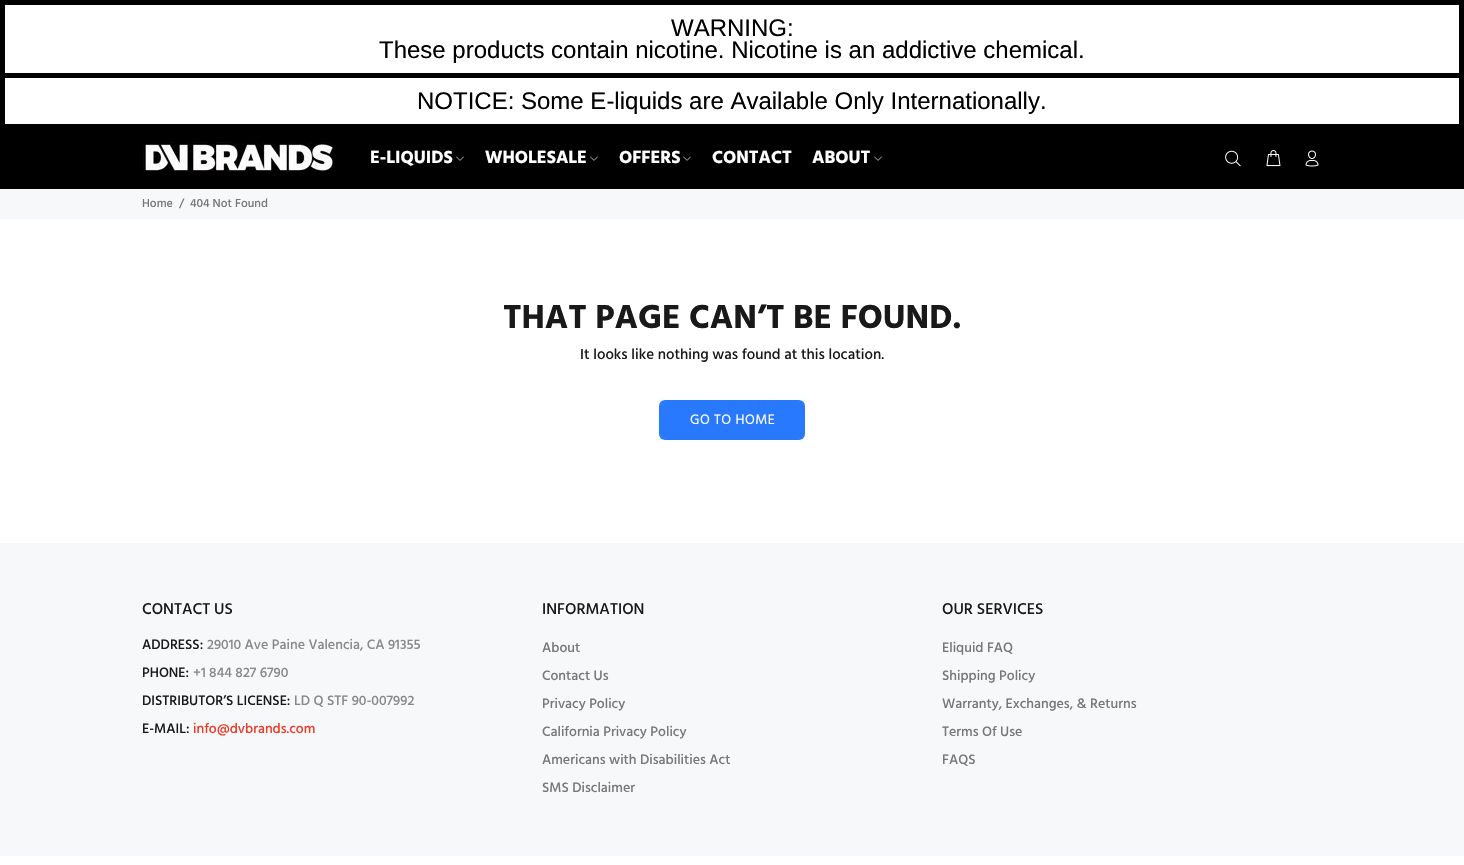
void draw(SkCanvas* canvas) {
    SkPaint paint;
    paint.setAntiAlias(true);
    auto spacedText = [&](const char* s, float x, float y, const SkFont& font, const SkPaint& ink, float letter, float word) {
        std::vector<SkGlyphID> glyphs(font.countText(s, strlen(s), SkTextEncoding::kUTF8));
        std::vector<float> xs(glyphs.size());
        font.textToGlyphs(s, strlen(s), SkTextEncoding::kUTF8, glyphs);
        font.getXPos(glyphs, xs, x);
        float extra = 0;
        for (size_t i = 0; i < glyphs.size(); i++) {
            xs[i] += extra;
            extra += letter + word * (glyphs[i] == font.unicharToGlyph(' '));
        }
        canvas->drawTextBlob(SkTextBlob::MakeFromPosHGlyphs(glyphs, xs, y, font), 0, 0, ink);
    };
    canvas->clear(0xFFFFFFFF);
    paint.setStyle(SkPaint::kStroke_Style);
    paint.setStrokeWidth(5);
    paint.setColor(0xFF000000);
    canvas->drawRect(SkRect::MakeXYWH(2.5f, 2.5f, 1459, 73), paint);
    SkFont font1(fontMgr->matchFamilyStyle("Liberation Sans", SkFontStyle::Normal()), 24);
    font1.setSubpixel(true);
    paint.setStyle(SkPaint::kFill_Style);
    canvas->drawString("WARNING:", 671, 36, font1, paint);
    canvas->drawString("These products contain nicotine. Nicotine is an addictive chemical.", 379, 58, font1, paint);
    canvas->drawRect(SkRect::MakeXYWH(1459, 78, 5, 51), paint);
    canvas->drawRect(SkRect::MakeXYWH(0, 124, 1464, 65), paint);
    canvas->drawRect(SkRect::MakeXYWH(0, 78, 5, 51), paint);
    canvas->drawString("NOTICE: Some E-liquids are Available Only Internationally.", 417, 109, font1, paint);
    canvas->drawImageRect(SkImages::DeferredFromEncodedData(SkData::MakeFromFileName("img1.png")), SkRect::MakeXYWH(143, 142, 193, 30), SkSamplingOptions());
    SkFont font2(fontMgr->matchFamilyStyle("Hind", SkFontStyle::Bold()), 18);
    font2.setSubpixel(true);
    paint.setColor(0xFFFFFFFF);
    canvas->drawString("E-LIQUIDS", 370, 163, font2, paint);
    canvas->drawImageRect(SkImages::DeferredFromEncodedData(SkData::MakeFromFileName("img2.png")), SkRect::MakeXYWH(456, 156, 8, 5), SkSamplingOptions());
    canvas->drawString("WHOLESALE", 485, 163, font2, paint);
    canvas->drawImageRect(SkImages::DeferredFromEncodedData(SkData::MakeFromFileName("img2.png")), SkRect::MakeXYWH(590, 156, 8, 5), SkSamplingOptions());
    canvas->drawString("OFFERS", 619, 163, font2, paint);
    canvas->drawImageRect(SkImages::DeferredFromEncodedData(SkData::MakeFromFileName("img2.png")), SkRect::MakeXYWH(683, 156, 8, 5), SkSamplingOptions());
    canvas->drawString("CONTACT", 712, 163, font2, paint);
    canvas->drawString("ABOUT", 812, 163, font2, paint);
    canvas->drawImageRect(SkImages::DeferredFromEncodedData(SkData::MakeFromFileName("img2.png")), SkRect::MakeXYWH(874, 156, 8, 5), SkSamplingOptions());
    canvas->drawImageRect(SkImages::DeferredFromEncodedData(SkData::MakeFromFileName("img3.png")), SkRect::MakeXYWH(1225, 150, 16, 17), SkSamplingOptions());
    canvas->drawImageRect(SkImages::DeferredFromEncodedData(SkData::MakeFromFileName("img4.png")), SkRect::MakeXYWH(1266, 150, 15, 17), SkSamplingOptions());
    canvas->drawImageRect(SkImages::DeferredFromEncodedData(SkData::MakeFromFileName("img5.png")), SkRect::MakeXYWH(1305, 150, 14, 17), SkSamplingOptions());
    paint.setColor(0xFFF7F8FA);
    canvas->drawRect(SkRect::MakeXYWH(0, 189, 1464, 30), paint);
    SkFont font3(fontMgr->matchFamilyStyle("Hind", SkFontStyle(500, SkFontStyle::kNormal_Width, SkFontStyle::kUpright_Slant)), 12);
    font3.setSubpixel(true);
    paint.setColor(0xFF777777);
    canvas->drawString("Home", 142, 207, font3, paint);
    canvas->drawString("/", 179, 207, font3, paint);
    canvas->drawString("404 Not Found", 190, 207, font3, paint);
    SkFont font4(fontMgr->matchFamilyStyle("Hind", SkFontStyle::Bold()), 34);
    font4.setSubpixel(true);
    paint.setColor(0xFF191919);
    canvas->drawString("THAT PAGE CAN’T BE FOUND.", 503, 328, font4, paint);
    SkFont font5(fontMgr->matchFamilyStyle("Hind", SkFontStyle(500, SkFontStyle::kNormal_Width, SkFontStyle::kUpright_Slant)), 15);
    font5.setSubpixel(true);
    canvas->drawString("It looks like nothing was found at this location.", 580, 359, font5, paint);
    paint.setColor(0xFF2879FE);
    canvas->drawRoundRect(SkRect::MakeXYWH(659, 400, 146, 40), 6, 6, paint);
    SkFont font6(fontMgr->matchFamilyStyle("Hind", SkFontStyle::Normal()), 14);
    font6.setSubpixel(true);
    paint.setColor(0xFFFFFFFF);
    spacedText("GO TO HOME", 690, 424, font6, paint, 0.5f, 0);
    paint.setColor(0xFFF7F8FA);
    canvas->drawRect(SkRect::MakeXYWH(0, 543, 1464, 313), paint);
    SkFont font7(fontMgr->matchFamilyStyle("Hind", SkFontStyle(500, SkFontStyle::kNormal_Width, SkFontStyle::kUpright_Slant)), 16);
    font7.setSubpixel(true);
    paint.setColor(0xFF191919);
    canvas->drawString("CONTACT US", 142, 614, font7, paint);
    SkFont font8(fontMgr->matchFamilyStyle("Hind", SkFontStyle(500, SkFontStyle::kNormal_Width, SkFontStyle::kUpright_Slant)), 14);
    font8.setSubpixel(true);
    canvas->drawString("ADDRESS:", 142, 649, font8, paint);
    paint.setColor(0xFF888888);
    canvas->drawString("29010 Ave Paine Valencia, CA 91355", 207, 649, font8, paint);
    paint.setColor(0xFF191919);
    canvas->drawString("PHONE:", 142, 677, font8, paint);
    paint.setColor(0xFF888888);
    canvas->drawString("+1 844 827 6790", 193, 677, font8, paint);
    paint.setColor(0xFF191919);
    canvas->drawString("DISTRIBUTOR’S LICENSE:", 142, 705, font8, paint);
    paint.setColor(0xFF888888);
    canvas->drawString("LD Q STF 90-007992", 294, 705, font8, paint);
    paint.setColor(0xFF191919);
    canvas->drawString("E-MAIL:", 142, 733, font8, paint);
    paint.setColor(0xFFEE3925);
    canvas->drawString("info@dvbrands.com", 193, 733, font8, paint);
    paint.setColor(0xFF191919);
    canvas->drawString("INFORMATION", 542, 614, font7, paint);
    paint.setColor(0xFF777777);
    canvas->drawString("About", 542, 652, font8, paint);
    canvas->drawString("Contact Us", 542, 680, font8, paint);
    canvas->drawString("Privacy Policy", 542, 708, font8, paint);
    canvas->drawString("California Privacy Policy", 542, 736, font8, paint);
    canvas->drawString("Americans with Disabilities Act", 542, 764, font8, paint);
    canvas->drawString("SMS Disclaimer", 542, 792, font8, paint);
    paint.setColor(0xFF191919);
    canvas->drawString("OUR SERVICES", 942, 614, font7, paint);
    paint.setColor(0xFF777777);
    canvas->drawString("Eliquid FAQ", 942, 652, font8, paint);
    canvas->drawString("Shipping Policy", 942, 680, font8, paint);
    canvas->drawString("Warranty, Exchanges, & Returns", 942, 708, font8, paint);
    canvas->drawString("Terms Of Use", 942, 736, font8, paint);
    canvas->drawString("FAQS", 942, 764, font8, paint);
}
